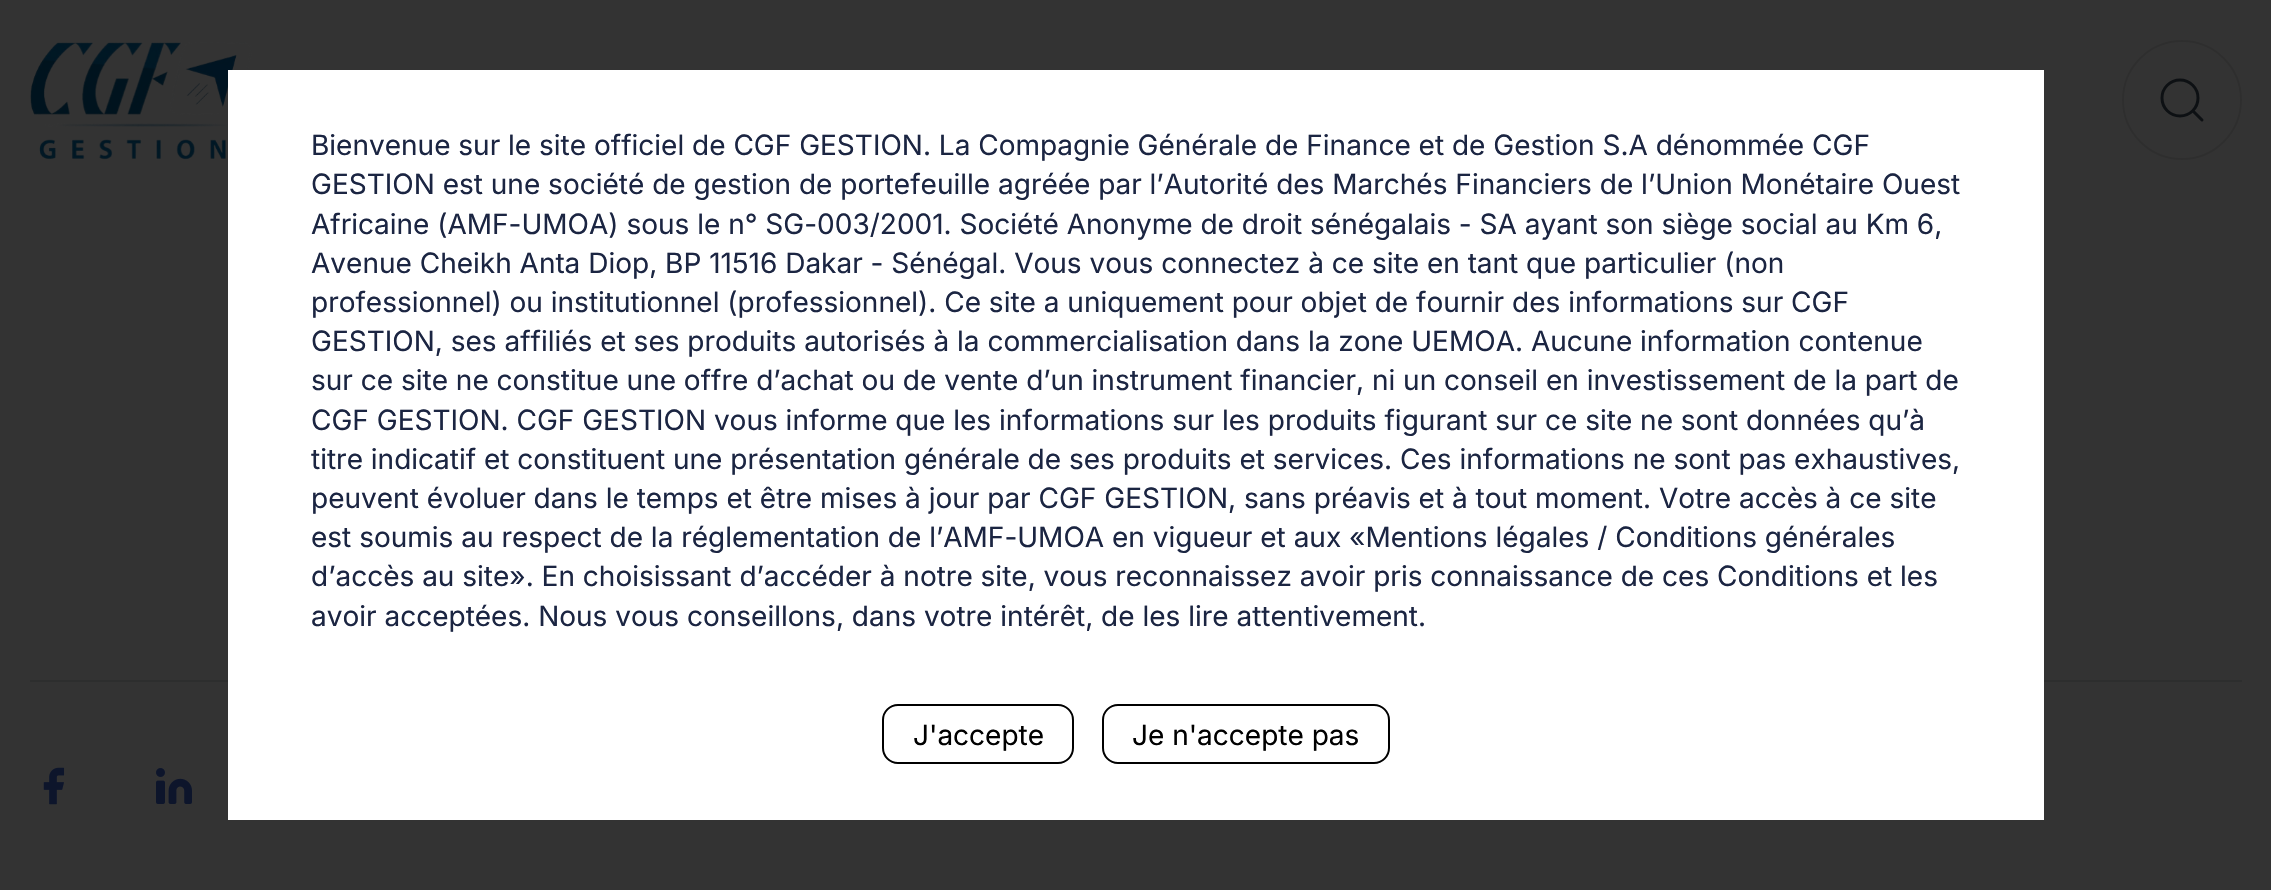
void draw(SkCanvas* canvas) {
    SkPaint paint;
    paint.setAntiAlias(true);
    canvas->clear(0xFF333333);
    canvas->drawImageRect(SkImages::DeferredFromEncodedData(SkData::MakeFromFileName("img1.png")), SkRect::MakeXYWH(30, 42, 222, 118), SkSamplingOptions());
    paint.setStyle(SkPaint::kStroke_Style);
    paint.setStrokeWidth(2);
    paint.setColor(0xFF2E2E2E);
    canvas->drawCircle(2182, 100, 59, paint);
    paint.setStrokeWidth(3);
    paint.setStrokeCap(SkPaint::kRound_Cap);
    paint.setStrokeJoin(SkPaint::kRound_Join);
    paint.setColor(0xFF0D1013);
    canvas->drawPath(SkPathBuilder().moveTo(2193, 111).lineTo(2202, 120).detach(), paint);
    paint.setStrokeCap(SkPaint::kButt_Cap);
    canvas->drawPath(SkPathBuilder().moveTo(2198, 98).cubicTo(2198, 88, 2190, 80, 2180, 80).cubicTo(2170, 80, 2162, 88, 2162, 98).cubicTo(2162, 108, 2170, 116, 2180, 116).cubicTo(2190, 116, 2198, 108, 2198, 98).close().detach(), paint);
    paint.setStyle(SkPaint::kFill_Style);
    paint.setColor(0xFF2D2E2E);
    canvas->drawRect(SkRect::MakeXYWH(30, 680, 2212, 2), paint);
    paint.setColor(0xFFFFFFFF);
    canvas->drawRect(SkRect::MakeXYWH(228, 70, 1816, 750), paint);
    SkFont font1(fontMgr->matchFamilyStyle("Inter", SkFontStyle::Normal()), 28);
    font1.setSubpixel(true);
    paint.setColor(0xFF1B2542);
    canvas->drawString("Bienvenue sur le site officiel de CGF GESTION. La Compagnie Générale de Finance et de Gestion S.A dénommée CGF", 311, 155, font1, paint);
    canvas->drawString("GESTION est une société de gestion de portefeuille agréée par l’Autorité des Marchés Financiers de l’Union Monétaire Ouest", 311, 194, font1, paint);
    canvas->drawString("Africaine (AMF-UMOA) sous le n° SG-003/2001. Société Anonyme de droit sénégalais - SA ayant son siège social au Km 6,", 311, 234, font1, paint);
    canvas->drawString("Avenue Cheikh Anta Diop, BP 11516 Dakar - Sénégal. Vous vous connectez à ce site en tant que particulier (non", 311, 273, font1, paint);
    canvas->drawString("professionnel) ou institutionnel (professionnel). Ce site a uniquement pour objet de fournir des informations sur CGF", 311, 312, font1, paint);
    canvas->drawString("GESTION, ses affiliés et ses produits autorisés à la commercialisation dans la zone UEMOA. Aucune information contenue", 311, 351, font1, paint);
    canvas->drawString("sur ce site ne constitue une offre d’achat ou de vente d’un instrument financier, ni un conseil en investissement de la part de", 311, 390, font1, paint);
    canvas->drawString("CGF GESTION. CGF GESTION vous informe que les informations sur les produits figurant sur ce site ne sont données qu’à", 311, 430, font1, paint);
    canvas->drawString("titre indicatif et constituent une présentation générale de ses produits et services. Ces informations ne sont pas exhaustives,", 311, 469, font1, paint);
    canvas->drawString("peuvent évoluer dans le temps et être mises à jour par CGF GESTION, sans préavis et à tout moment. Votre accès à ce site", 311, 508, font1, paint);
    canvas->drawString("est soumis au respect de la réglementation de l’AMF-UMOA en vigueur et aux «Mentions légales / Conditions générales", 311, 547, font1, paint);
    canvas->drawString("d’accès au site». En choisissant d’accéder à notre site, vous reconnaissez avoir pris connaissance de ces Conditions et les", 311, 586, font1, paint);
    canvas->drawString("avoir acceptées. Nous vous conseillons, dans votre intérêt, de les lire attentivement.", 311, 626, font1, paint);
    paint.setStyle(SkPaint::kStroke_Style);
    paint.setStrokeWidth(2);
    paint.setStrokeJoin(SkPaint::kMiter_Join);
    paint.setColor(0xFF000000);
    canvas->drawRoundRect(SkRect::MakeXYWH(883, 705, 190, 58), 15, 15, paint);
    paint.setStyle(SkPaint::kFill_Style);
    canvas->drawString("J'accepte", 913, 745, font1, paint);
    paint.setStyle(SkPaint::kStroke_Style);
    canvas->drawRoundRect(SkRect::MakeXYWH(1103, 705, 286, 58), 15, 15, paint);
    paint.setStyle(SkPaint::kFill_Style);
    canvas->drawString("Je n'accepte pas", 1132, 745, font1, paint);
    canvas->drawImageRect(SkImages::DeferredFromEncodedData(SkData::MakeFromFileName("img2.png")), SkRect::MakeXYWH(43, 767, 22, 38), SkSamplingOptions());
    canvas->drawImageRect(SkImages::DeferredFromEncodedData(SkData::MakeFromFileName("img3.png")), SkRect::MakeXYWH(156, 768, 36, 36), SkSamplingOptions());
}
